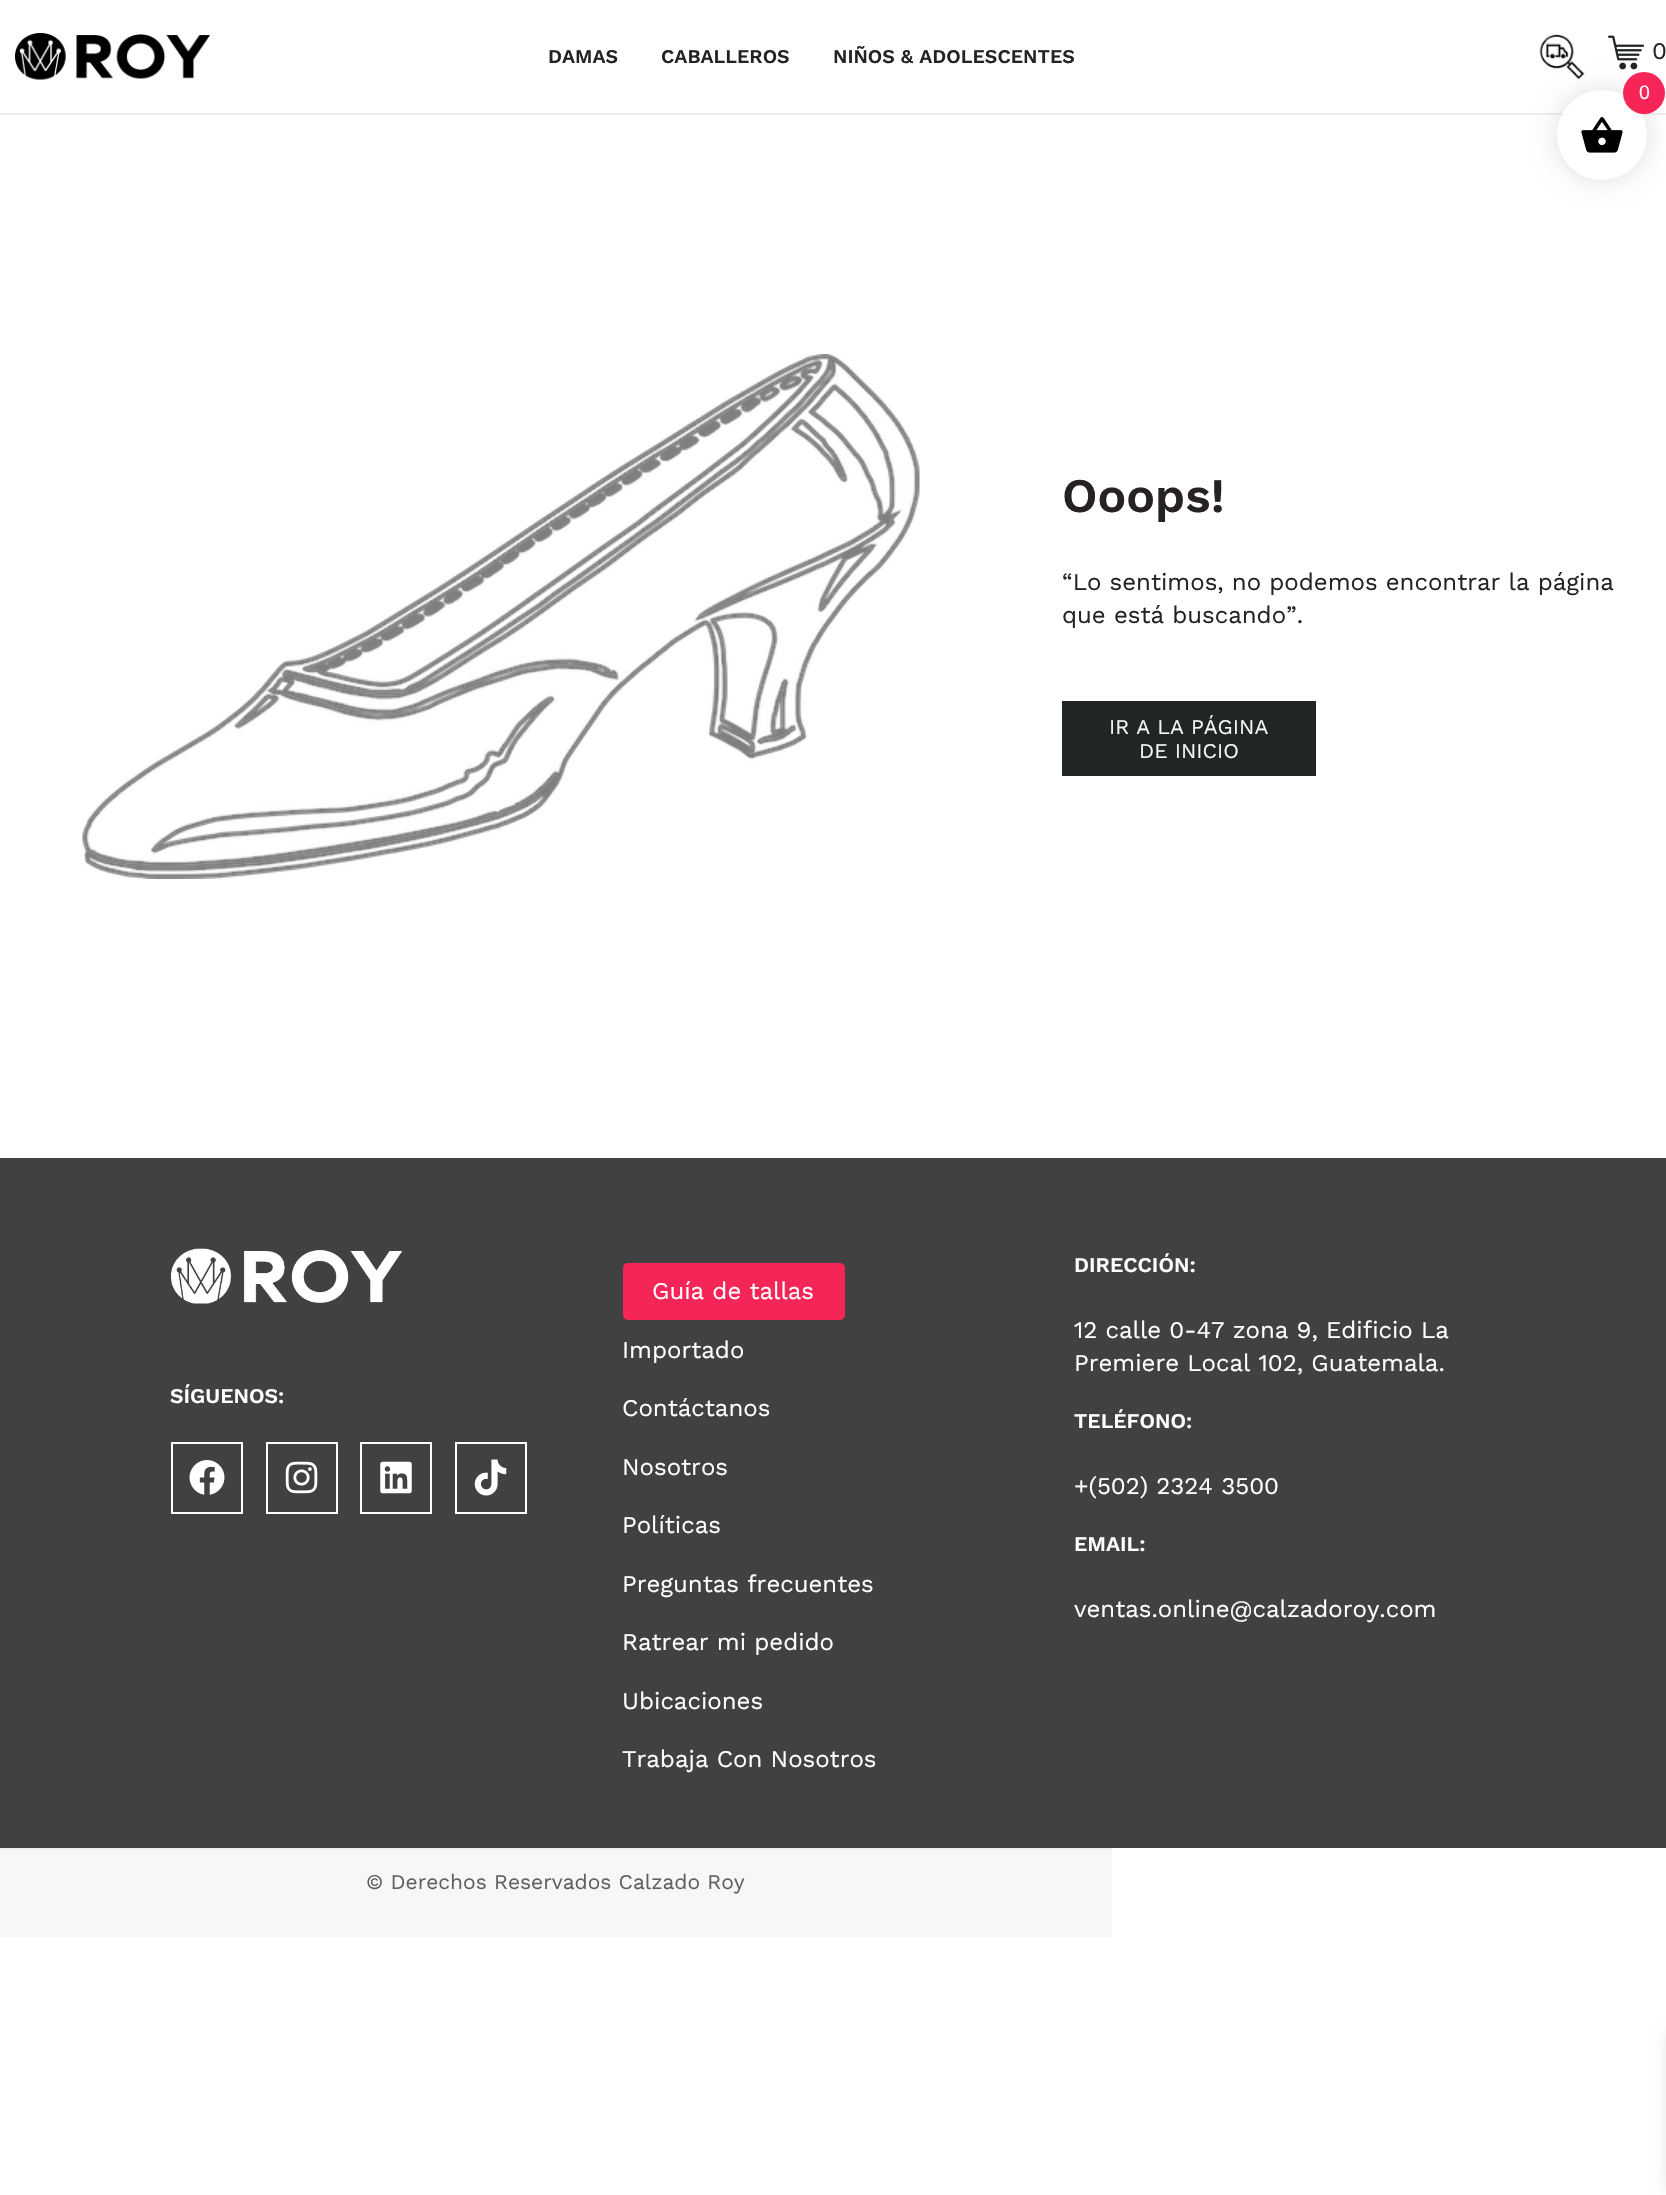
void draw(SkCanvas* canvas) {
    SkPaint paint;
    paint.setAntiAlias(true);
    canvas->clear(0xFFFFFFFF);
    paint.setColor(0xFFEEEEEE);
    canvas->drawRect(SkRect::MakeXYWH(0, 113, 1666, 2), paint);
    canvas->drawImageRect(SkImages::DeferredFromEncodedData(SkData::MakeFromFileName("img1.png")), SkRect::MakeXYWH(15, 33, 195, 47), SkSamplingOptions());
    SkFont font1(fontMgr->matchFamilyStyle("Work Sans", SkFontStyle(600, SkFontStyle::kNormal_Width, SkFontStyle::kUpright_Slant)), 19.5f);
    font1.setSubpixel(true);
    paint.setColor(0xFF262123);
    canvas->drawString("DAMAS", 548, 63, font1, paint);
    canvas->drawString("CABALLEROS", 661, 63, font1, paint);
    canvas->drawString("NIÑOS & ADOLESCENTES", 833, 63, font1, paint);
    canvas->drawImageRect(SkImages::DeferredFromEncodedData(SkData::MakeFromFileName("img2.png")), SkRect::MakeXYWH(1539, 34, 46, 46), SkSamplingOptions());
    canvas->drawImageRect(SkImages::DeferredFromEncodedData(SkData::MakeFromFileName("img3.png")), SkRect::MakeXYWH(1608, 35, 36, 35), SkSamplingOptions());
    SkFont font2(fontMgr->matchFamilyStyle("Work Sans", SkFontStyle::Normal()), 24);
    font2.setSubpixel(true);
    canvas->drawString("0", 1652, 59, font2, paint);
    canvas->drawImageRect(SkImages::DeferredFromEncodedData(SkData::MakeFromFileName("img4.png")), SkRect::MakeXYWH(82, 354, 838, 525), SkSamplingOptions());
    SkFont font3(fontMgr->matchFamilyStyle("Work Sans", SkFontStyle(600, SkFontStyle::kNormal_Width, SkFontStyle::kUpright_Slant)), 48);
    font3.setSubpixel(true);
    canvas->drawString("Ooops!", 1062, 512, font3, paint);
    canvas->drawString("“Lo sentimos, no podemos encontrar la página", 1062, 590, font2, paint);
    canvas->drawString("que está buscando”.", 1062, 623, font2, paint);
    paint.setColor(0xFF212526);
    canvas->drawRect(SkRect::MakeXYWH(1062, 701, 254, 75), paint);
    SkFont font4(fontMgr->matchFamilyStyle("Work Sans", SkFontStyle::Normal()), 21);
    font4.setSubpixel(true);
    paint.setColor(0xFFF8F7F7);
    canvas->drawString("IR A LA PÁGINA", 1109, 734, font4, paint);
    canvas->drawString("DE INICIO", 1139, 758, font4, paint);
    paint.setColor(0xFF414141);
    canvas->drawRect(SkRect::MakeXYWH(0, 1158, 1666, 690), paint);
    canvas->drawImageRect(SkImages::DeferredFromEncodedData(SkData::MakeFromFileName("img5.png")), SkRect::MakeXYWH(171, 1248, 231, 56), SkSamplingOptions());
    SkFont font5(fontMgr->matchFamilyStyle("Work Sans", SkFontStyle(600, SkFontStyle::kNormal_Width, SkFontStyle::kUpright_Slant)), 21);
    font5.setSubpixel(true);
    paint.setColor(0xFFFFFFFF);
    canvas->drawString("SÍGUENOS:", 170, 1403, font5, paint);
    paint.setStyle(SkPaint::kStroke_Style);
    paint.setStrokeWidth(2);
    canvas->drawRect(SkRect::MakeXYWH(172, 1443, 70, 70), paint);
    canvas->drawImageRect(SkImages::DeferredFromEncodedData(SkData::MakeFromFileName("img6.png")), SkRect::MakeXYWH(189, 1460, 36, 35), SkSamplingOptions());
    canvas->drawRect(SkRect::MakeXYWH(267, 1443, 70, 70), paint);
    canvas->drawImageRect(SkImages::DeferredFromEncodedData(SkData::MakeFromFileName("img7.png")), SkRect::MakeXYWH(285, 1461, 33, 33), SkSamplingOptions());
    canvas->drawRect(SkRect::MakeXYWH(361, 1443, 70, 70), paint);
    canvas->drawImageRect(SkImages::DeferredFromEncodedData(SkData::MakeFromFileName("img8.png")), SkRect::MakeXYWH(380, 1461, 32, 33), SkSamplingOptions());
    canvas->drawRect(SkRect::MakeXYWH(456, 1443, 70, 70), paint);
    canvas->drawImageRect(SkImages::DeferredFromEncodedData(SkData::MakeFromFileName("img9.png")), SkRect::MakeXYWH(474, 1459, 33, 37), SkSamplingOptions());
    paint.setStyle(SkPaint::kFill_Style);
    paint.setColor(0xFFF52557);
    canvas->drawRoundRect(SkRect::MakeXYWH(623, 1263, 222, 57), 5, 5, paint);
    paint.setColor(0xFFFFFFFF);
    canvas->drawString("Guía de tallas", 652, 1299, font2, paint);
    canvas->drawString("Importado", 622, 1358, font2, paint);
    canvas->drawString("Contáctanos", 622, 1416, font2, paint);
    canvas->drawString("Nosotros", 622, 1475, font2, paint);
    canvas->drawString("Políticas", 622, 1533, font2, paint);
    canvas->drawString("Preguntas frecuentes", 622, 1592, font2, paint);
    canvas->drawString("Ratrear mi pedido", 622, 1650, font2, paint);
    canvas->drawString("Ubicaciones", 622, 1709, font2, paint);
    canvas->drawString("Trabaja Con Nosotros", 622, 1767, font2, paint);
    canvas->drawString("DIRECCIÓN:", 1074, 1272, font5, paint);
    canvas->drawString("12 calle 0-47 zona 9, Edificio La", 1074, 1338, font2, paint);
    canvas->drawString("Premiere Local 102, Guatemala.", 1074, 1371, font2, paint);
    canvas->drawString("TELÉFONO:", 1074, 1428, font5, paint);
    canvas->drawString("+(502) 2324 3500", 1074, 1494, font2, paint);
    canvas->drawString("EMAIL:", 1074, 1551, font5, paint);
    canvas->drawString("ventas.online@calzadoroy.com", 1074, 1617, font2, paint);
    paint.setColor(0xFFF8F7F7);
    canvas->drawRect(SkRect::MakeXYWH(0, 1850, 1112, 87), paint);
    paint.setColor(0xFFEEEEEE);
    canvas->drawRect(SkRect::MakeXYWH(0, 1848, 1112, 2), paint);
    paint.setColor(0xFF606060);
    canvas->drawString("© Derechos Reservados Calzado Roy", 366, 1889, font4, paint);
    paint.setColor(0x1A000000);
    paint.setMaskFilter(SkMaskFilter::MakeBlur(kNormal_SkBlurStyle, 11));
    canvas->drawRoundRect(SkRect::MakeXYWH(1554, 87, 96, 96), 48, 48, paint);
    paint.setMaskFilter(nullptr);
    paint.setColor(0xFFFFFFFF);
    canvas->drawCircle(1602, 135, 45, paint);
    paint.setColor(0xFFF72457);
    canvas->drawCircle(1644, 93, 21, paint);
    SkFont font6(fontMgr->matchFamilyStyle("Liberation Sans", SkFontStyle::Normal()), 19.5f);
    font6.setSubpixel(true);
    paint.setColor(0xFFFFFFFF);
    canvas->drawString("0", 1639, 99, font6, paint);
    canvas->drawImageRect(SkImages::DeferredFromEncodedData(SkData::MakeFromFileName("img10.png")), SkRect::MakeXYWH(1581, 117, 42, 36), SkSamplingOptions());
    paint.setColor(0x1A000000);
    paint.setMaskFilter(SkMaskFilter::MakeBlur(kNormal_SkBlurStyle, 7.5f));
    canvas->drawRect(SkRect::MakeXYWH(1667, 2033, 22, 156), paint);
    paint.setMaskFilter(nullptr);
}
